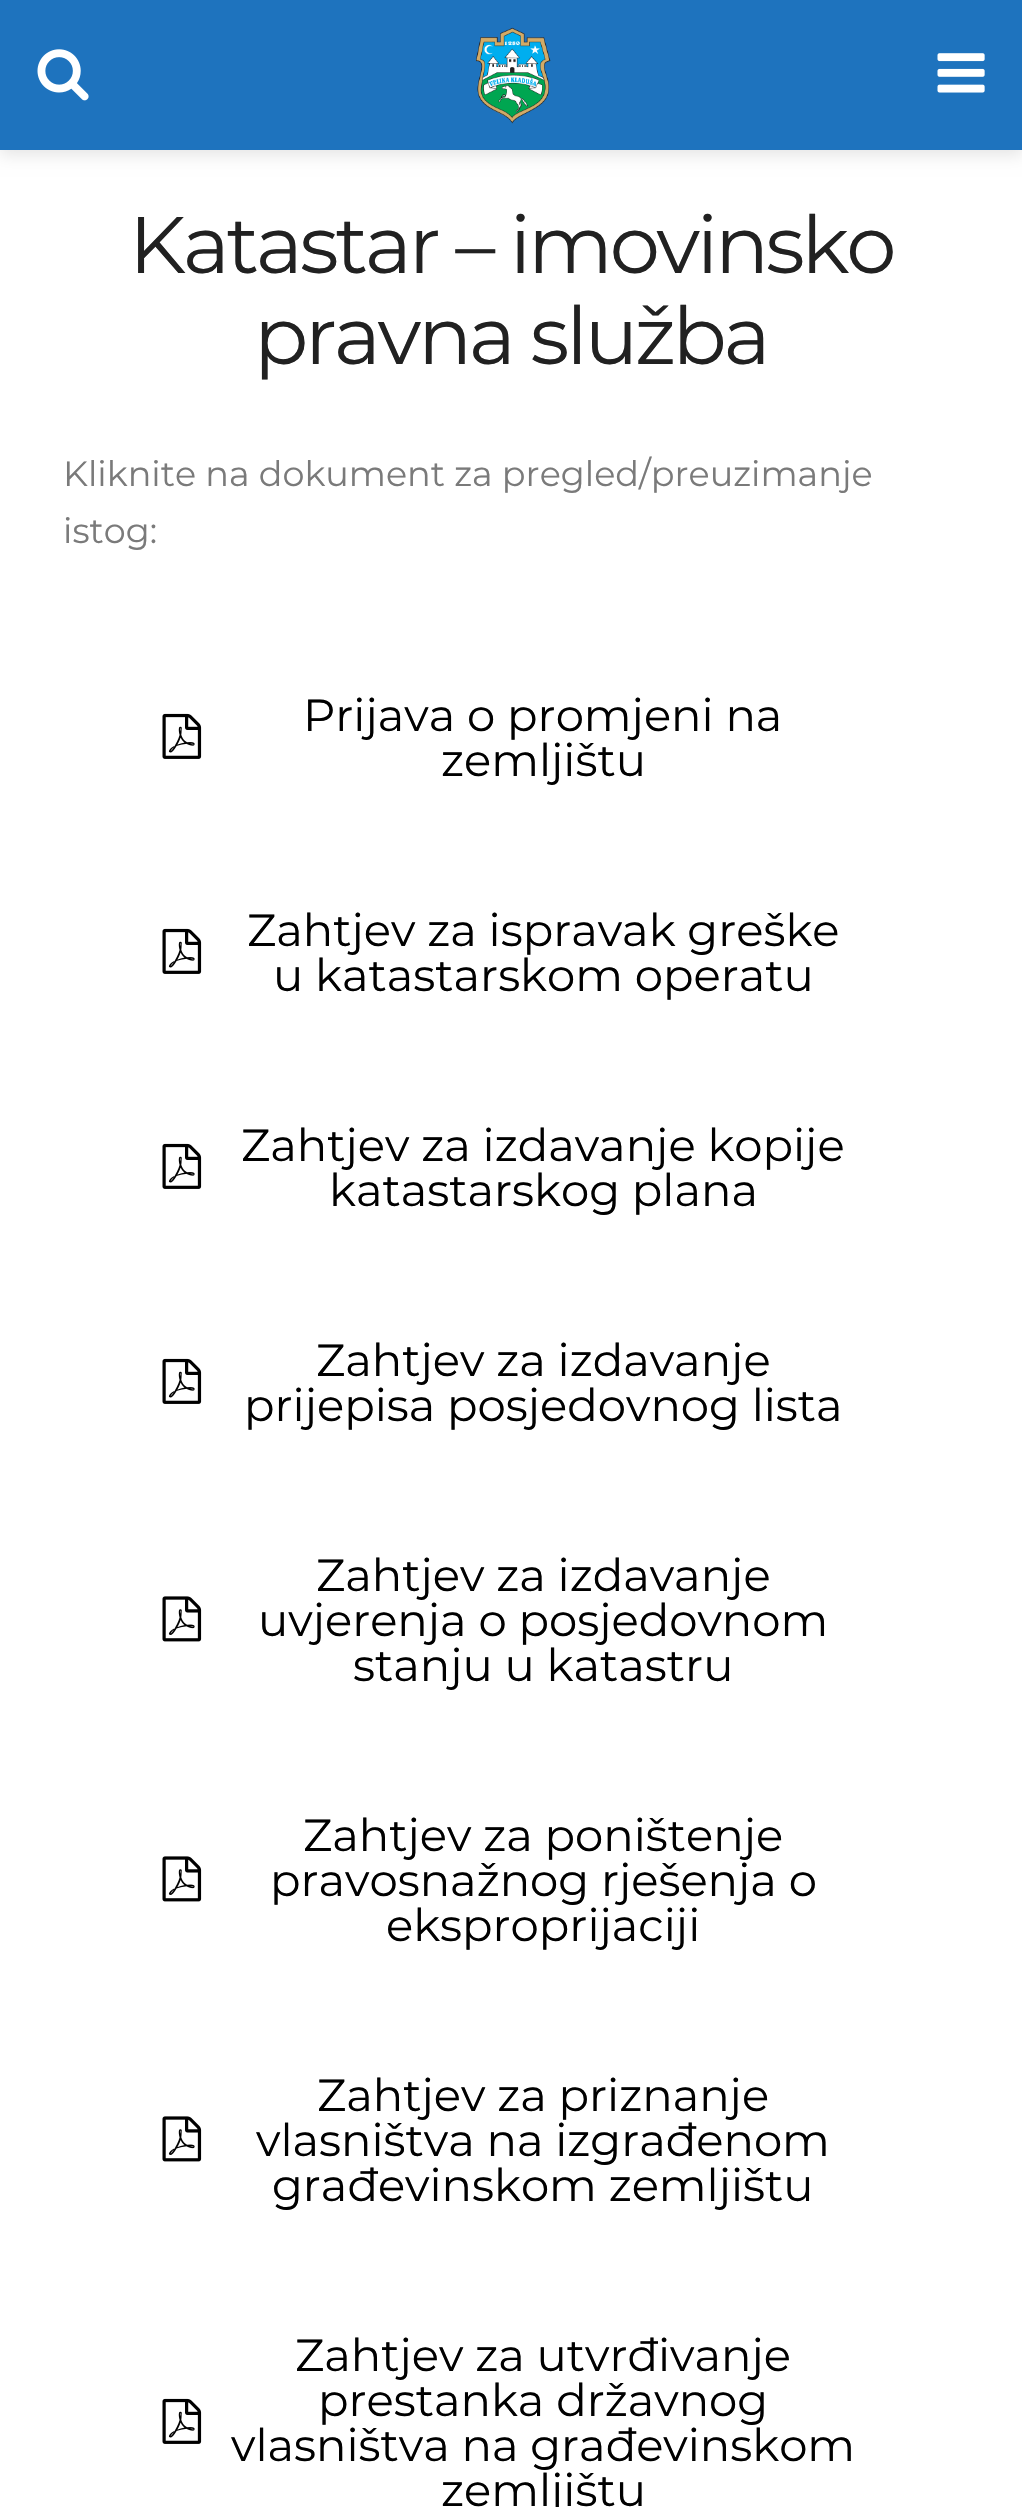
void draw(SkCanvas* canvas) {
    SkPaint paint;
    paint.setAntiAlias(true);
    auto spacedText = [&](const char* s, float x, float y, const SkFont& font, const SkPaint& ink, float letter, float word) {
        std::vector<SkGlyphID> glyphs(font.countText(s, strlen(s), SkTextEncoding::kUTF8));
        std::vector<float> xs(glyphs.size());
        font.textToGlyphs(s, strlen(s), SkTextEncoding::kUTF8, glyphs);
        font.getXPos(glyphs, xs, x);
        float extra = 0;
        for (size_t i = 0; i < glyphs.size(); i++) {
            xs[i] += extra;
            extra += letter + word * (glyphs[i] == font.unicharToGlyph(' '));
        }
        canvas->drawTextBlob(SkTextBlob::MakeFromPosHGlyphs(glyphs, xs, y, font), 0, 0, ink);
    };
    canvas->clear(0xFFFFFFFF);
    paint.setColor(0x1A000000);
    paint.setMaskFilter(SkMaskFilter::MakeBlur(kNormal_SkBlurStyle, 7.5f));
    canvas->drawRect(SkRect::MakeXYWH(0, 5, 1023, 150), paint);
    paint.setMaskFilter(nullptr);
    paint.setColor(0xFF1E73BE);
    canvas->drawRect(SkRect::MakeXYWH(0, 0, 1022, 150), paint);
    canvas->drawImageRect(SkImages::DeferredFromEncodedData(SkData::MakeFromFileName("img1.png")), SkRect::MakeXYWH(37, 49, 52, 52), SkSamplingOptions());
    canvas->drawImageRect(SkImages::DeferredFromEncodedData(SkData::MakeFromFileName("img2.png")), SkRect::MakeXYWH(476, 27, 75, 97), SkSamplingOptions());
    canvas->drawImageRect(SkImages::DeferredFromEncodedData(SkData::MakeFromFileName("img3.png")), SkRect::MakeXYWH(937, 53, 48, 40), SkSamplingOptions());
    SkFont font1(fontMgr->matchFamilyStyle("Montserrat", SkFontStyle(100, SkFontStyle::kNormal_Width, SkFontStyle::kUpright_Slant)), 80);
    font1.setSubpixel(true);
    paint.setColor(0xFF212121);
    spacedText("Katastar – imovinsko", 129, 273, font1, paint, -3.25f, 0);
    spacedText("pravna služba", 254, 364, font1, paint, -3.25f, 0);
    SkFont font2(fontMgr->matchFamilyStyle("Montserrat", SkFontStyle(100, SkFontStyle::kNormal_Width, SkFontStyle::kUpright_Slant)), 35);
    font2.setSubpixel(true);
    paint.setColor(0xFF7A7A7A);
    canvas->drawString("Kliknite na dokument za pregled/preuzimanje", 63, 486, font2, paint);
    canvas->drawString("istog:", 63, 543, font2, paint);
    canvas->drawImageRect(SkImages::DeferredFromEncodedData(SkData::MakeFromFileName("img4.png")), SkRect::MakeXYWH(162, 713, 40, 46), SkSamplingOptions());
    SkFont font3(fontMgr->matchFamilyStyle("Montserrat", SkFontStyle(100, SkFontStyle::kNormal_Width, SkFontStyle::kUpright_Slant)), 45);
    font3.setSubpixel(true);
    paint.setColor(0xFF000000);
    canvas->drawString("Prijava o promjeni na", 303, 731, font3, paint);
    canvas->drawString("zemljištu", 441, 776, font3, paint);
    canvas->drawImageRect(SkImages::DeferredFromEncodedData(SkData::MakeFromFileName("img4.png")), SkRect::MakeXYWH(162, 928, 40, 46), SkSamplingOptions());
    canvas->drawString("Zahtjev za ispravak greške", 247, 946, font3, paint);
    canvas->drawString("u katastarskom operatu", 273, 991, font3, paint);
    canvas->drawImageRect(SkImages::DeferredFromEncodedData(SkData::MakeFromFileName("img4.png")), SkRect::MakeXYWH(162, 1143, 40, 46), SkSamplingOptions());
    canvas->drawString("Zahtjev za izdavanje kopije", 241, 1161, font3, paint);
    canvas->drawString("katastarskog plana", 329, 1206, font3, paint);
    canvas->drawImageRect(SkImages::DeferredFromEncodedData(SkData::MakeFromFileName("img4.png")), SkRect::MakeXYWH(162, 1358, 40, 46), SkSamplingOptions());
    canvas->drawString("Zahtjev za izdavanje", 316, 1376, font3, paint);
    canvas->drawString("prijepisa posjedovnog lista", 244, 1421, font3, paint);
    canvas->drawImageRect(SkImages::DeferredFromEncodedData(SkData::MakeFromFileName("img5.png")), SkRect::MakeXYWH(162, 1596, 40, 46), SkSamplingOptions());
    canvas->drawString("Zahtjev za izdavanje", 316, 1591, font3, paint);
    canvas->drawString("uvjerenja o posjedovnom", 258, 1636, font3, paint);
    canvas->drawString("stanju u katastru", 353, 1681, font3, paint);
    canvas->drawImageRect(SkImages::DeferredFromEncodedData(SkData::MakeFromFileName("img5.png")), SkRect::MakeXYWH(162, 1856, 40, 46), SkSamplingOptions());
    canvas->drawString("Zahtjev za poništenje", 303, 1851, font3, paint);
    canvas->drawString("pravosnažnog rješenja o", 270, 1896, font3, paint);
    canvas->drawString("eksproprijaciji", 386, 1941, font3, paint);
    canvas->drawImageRect(SkImages::DeferredFromEncodedData(SkData::MakeFromFileName("img5.png")), SkRect::MakeXYWH(162, 2116, 40, 46), SkSamplingOptions());
    canvas->drawString("Zahtjev za priznanje", 317, 2111, font3, paint);
    canvas->drawString("vlasništva na izgrađenom", 256, 2156, font3, paint);
    canvas->drawString("građevinskom zemljištu", 272, 2201, font3, paint);
    canvas->drawImageRect(SkImages::DeferredFromEncodedData(SkData::MakeFromFileName("img4.png")), SkRect::MakeXYWH(162, 2398, 40, 46), SkSamplingOptions());
    canvas->drawString("Zahtjev za utvrđivanje", 295, 2371, font3, paint);
    canvas->drawString("prestanka državnog", 318, 2416, font3, paint);
    canvas->drawString("vlasništva na građevinskom", 231, 2461, font3, paint);
    canvas->drawString("zemljištu", 441, 2506, font3, paint);
}
